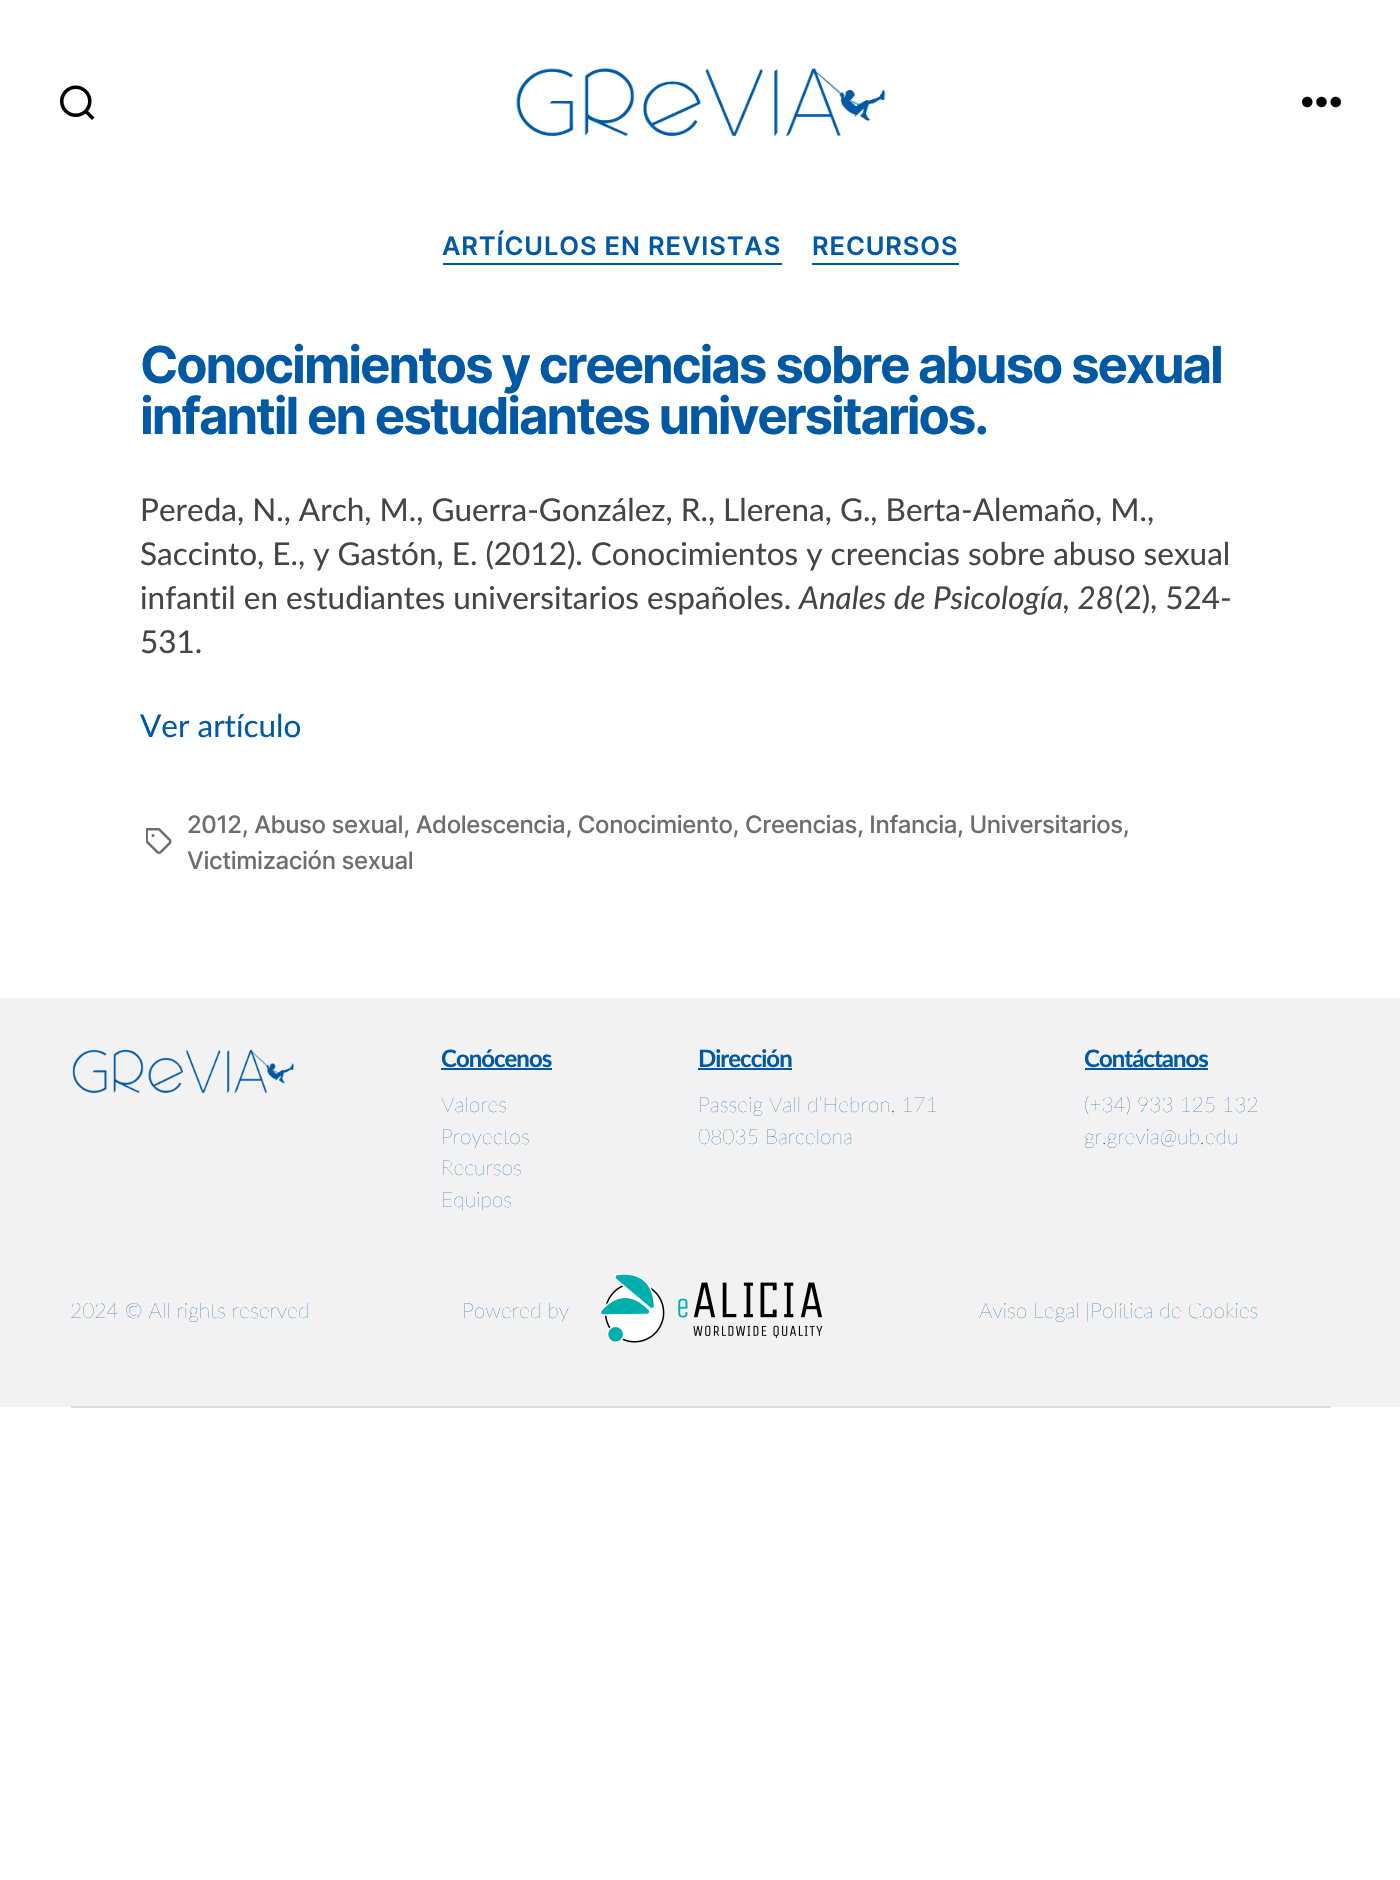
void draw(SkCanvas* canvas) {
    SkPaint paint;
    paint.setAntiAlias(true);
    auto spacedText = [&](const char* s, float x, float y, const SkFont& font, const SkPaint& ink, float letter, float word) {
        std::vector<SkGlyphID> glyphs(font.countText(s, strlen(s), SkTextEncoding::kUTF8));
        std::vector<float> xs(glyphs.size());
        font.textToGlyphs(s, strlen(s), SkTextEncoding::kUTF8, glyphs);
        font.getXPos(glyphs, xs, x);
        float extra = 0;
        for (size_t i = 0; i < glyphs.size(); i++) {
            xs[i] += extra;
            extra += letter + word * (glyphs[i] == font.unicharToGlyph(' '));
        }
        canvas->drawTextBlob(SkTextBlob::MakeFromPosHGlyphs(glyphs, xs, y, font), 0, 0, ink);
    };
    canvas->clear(0xFFFFFFFF);
    canvas->drawImageRect(SkImages::DeferredFromEncodedData(SkData::MakeFromFileName("img1.png")), SkRect::MakeXYWH(60, 85, 35, 35), SkSamplingOptions());
    canvas->drawImageRect(SkImages::DeferredFromEncodedData(SkData::MakeFromFileName("img2.png")), SkRect::MakeXYWH(516, 68, 370, 69), SkSamplingOptions());
    canvas->drawImageRect(SkImages::DeferredFromEncodedData(SkData::MakeFromFileName("img3.png")), SkRect::MakeXYWH(1302, 96, 39, 12), SkSamplingOptions());
    paint.setColor(0xFF0059A2);
    canvas->drawRect(SkRect::MakeXYWH(443, 263, 339, 2), paint);
    SkFont font1(fontMgr->matchFamilyStyle("Inter", SkFontStyle(600, SkFontStyle::kNormal_Width, SkFontStyle::kUpright_Slant)), 25.5f);
    font1.setSubpixel(true);
    spacedText("ARTÍCULOS EN REVISTAS", 442, 255, font1, paint, 0.9f, 0);
    canvas->drawRect(SkRect::MakeXYWH(812, 263, 147, 2), paint);
    spacedText("RECURSOS", 812, 255, font1, paint, 0.9f, 0);
    SkFont font2(fontMgr->matchFamilyStyle("Inter", SkFontStyle::Bold()), 51);
    font2.setSubpixel(true);
    spacedText("Conocimientos y creencias sobre abuso sexual", 140, 383, font2, paint, -2.1f, 0);
    spacedText("infantil en estudiantes universitarios.", 140, 434, font2, paint, -2.1f, 0);
    SkFont font3(fontMgr->matchFamilyStyle("Lato", SkFontStyle::Normal()), 31.5f);
    font3.setSubpixel(true);
    paint.setColor(0xFF444444);
    canvas->drawString("Pereda, N., Arch, M., Guerra-González, R., Llerena, G., Berta-Alemaño, M.,", 140, 521, font3, paint);
    canvas->drawString("Saccinto, E., y Gastón, E. (2012). Conocimientos y creencias sobre abuso sexual", 140, 565, font3, paint);
    canvas->drawString("infantil en estudiantes universitarios españoles.", 140, 609, font3, paint);
    SkFont font4(fontMgr->matchFamilyStyle("Lato", SkFontStyle::Italic()), 31.5f);
    font4.setSubpixel(true);
    canvas->drawString("Anales de Psicología, 28", 799, 609, font4, paint);
    canvas->drawString("(2), 524-", 1115, 609, font3, paint);
    canvas->drawString("531.", 140, 653, font3, paint);
    paint.setColor(0xFF0059A2);
    canvas->drawString("Ver artículo", 140, 737, font3, paint);
    canvas->drawImageRect(SkImages::DeferredFromEncodedData(SkData::MakeFromFileName("img4.png")), SkRect::MakeXYWH(146, 828, 26, 26), SkSamplingOptions());
    SkFont font5(fontMgr->matchFamilyStyle("Inter", SkFontStyle(500, SkFontStyle::kNormal_Width, SkFontStyle::kUpright_Slant)), 24);
    font5.setSubpixel(true);
    paint.setColor(0xFF6D6D6D);
    spacedText("2012, Abuso sexual, Adolescencia, Conocimiento, Creencias, Infancia, Universitarios,", 187, 833, font5, paint, -0.4f, 0);
    spacedText("Victimización sexual", 187, 869, font5, paint, -0.4f, 0);
    paint.setColor(0xFFF2F2F2);
    canvas->drawRect(SkRect::MakeXYWH(0, 998, 1400, 409), paint);
    paint.setColor(0xFFDBDBDB);
    canvas->drawRect(SkRect::MakeXYWH(71, 1406, 1260, 2), paint);
    canvas->drawImageRect(SkImages::DeferredFromEncodedData(SkData::MakeFromFileName("img5.png")), SkRect::MakeXYWH(72, 1049, 222, 45), SkSamplingOptions());
    SkFont font6(fontMgr->matchFamilyStyle("Lato", SkFontStyle::Bold()), 24);
    font6.setSubpixel(true);
    paint.setColor(0xFF0059A2);
    spacedText("Conócenos", 441, 1067, font6, paint, -1, 0);
    canvas->drawRect(SkRect::MakeXYWH(441, 1068, 111, 2), paint);
    SkFont font7(fontMgr->matchFamilyStyle("Lato", SkFontStyle(200, SkFontStyle::kNormal_Width, SkFontStyle::kUpright_Slant)), 21);
    font7.setSubpixel(true);
    canvas->drawString("Valores", 441, 1112, font7, paint);
    canvas->drawString("Proyectos", 441, 1144, font7, paint);
    canvas->drawString("Recursos", 441, 1175, font7, paint);
    canvas->drawString("Equipos", 441, 1207, font7, paint);
    spacedText("Dirección", 698, 1067, font6, paint, -1, 0);
    canvas->drawRect(SkRect::MakeXYWH(698, 1068, 94, 2), paint);
    canvas->drawString("Passeig Vall d’Hebron, 171", 698, 1112, font7, paint);
    canvas->drawString("08035 Barcelona", 698, 1144, font7, paint);
    spacedText("Contáctanos", 1084, 1067, font6, paint, -1, 0);
    canvas->drawRect(SkRect::MakeXYWH(1085, 1068, 123, 2), paint);
    canvas->drawString("(+34) 933 125 132", 1084, 1112, font7, paint);
    canvas->drawString("gr.grevia@ub.edu", 1084, 1144, font7, paint);
    canvas->drawString("2024 © All rights reserved", 70, 1318, font7, paint);
    canvas->drawString("Powered by", 462, 1318, font7, paint);
    canvas->drawImageRect(SkImages::DeferredFromEncodedData(SkData::MakeFromFileName("img6.png")), SkRect::MakeXYWH(599, 1274, 224, 69), SkSamplingOptions());
    canvas->drawString("Aviso Legal |Política de Cookies", 979, 1318, font7, paint);
}
